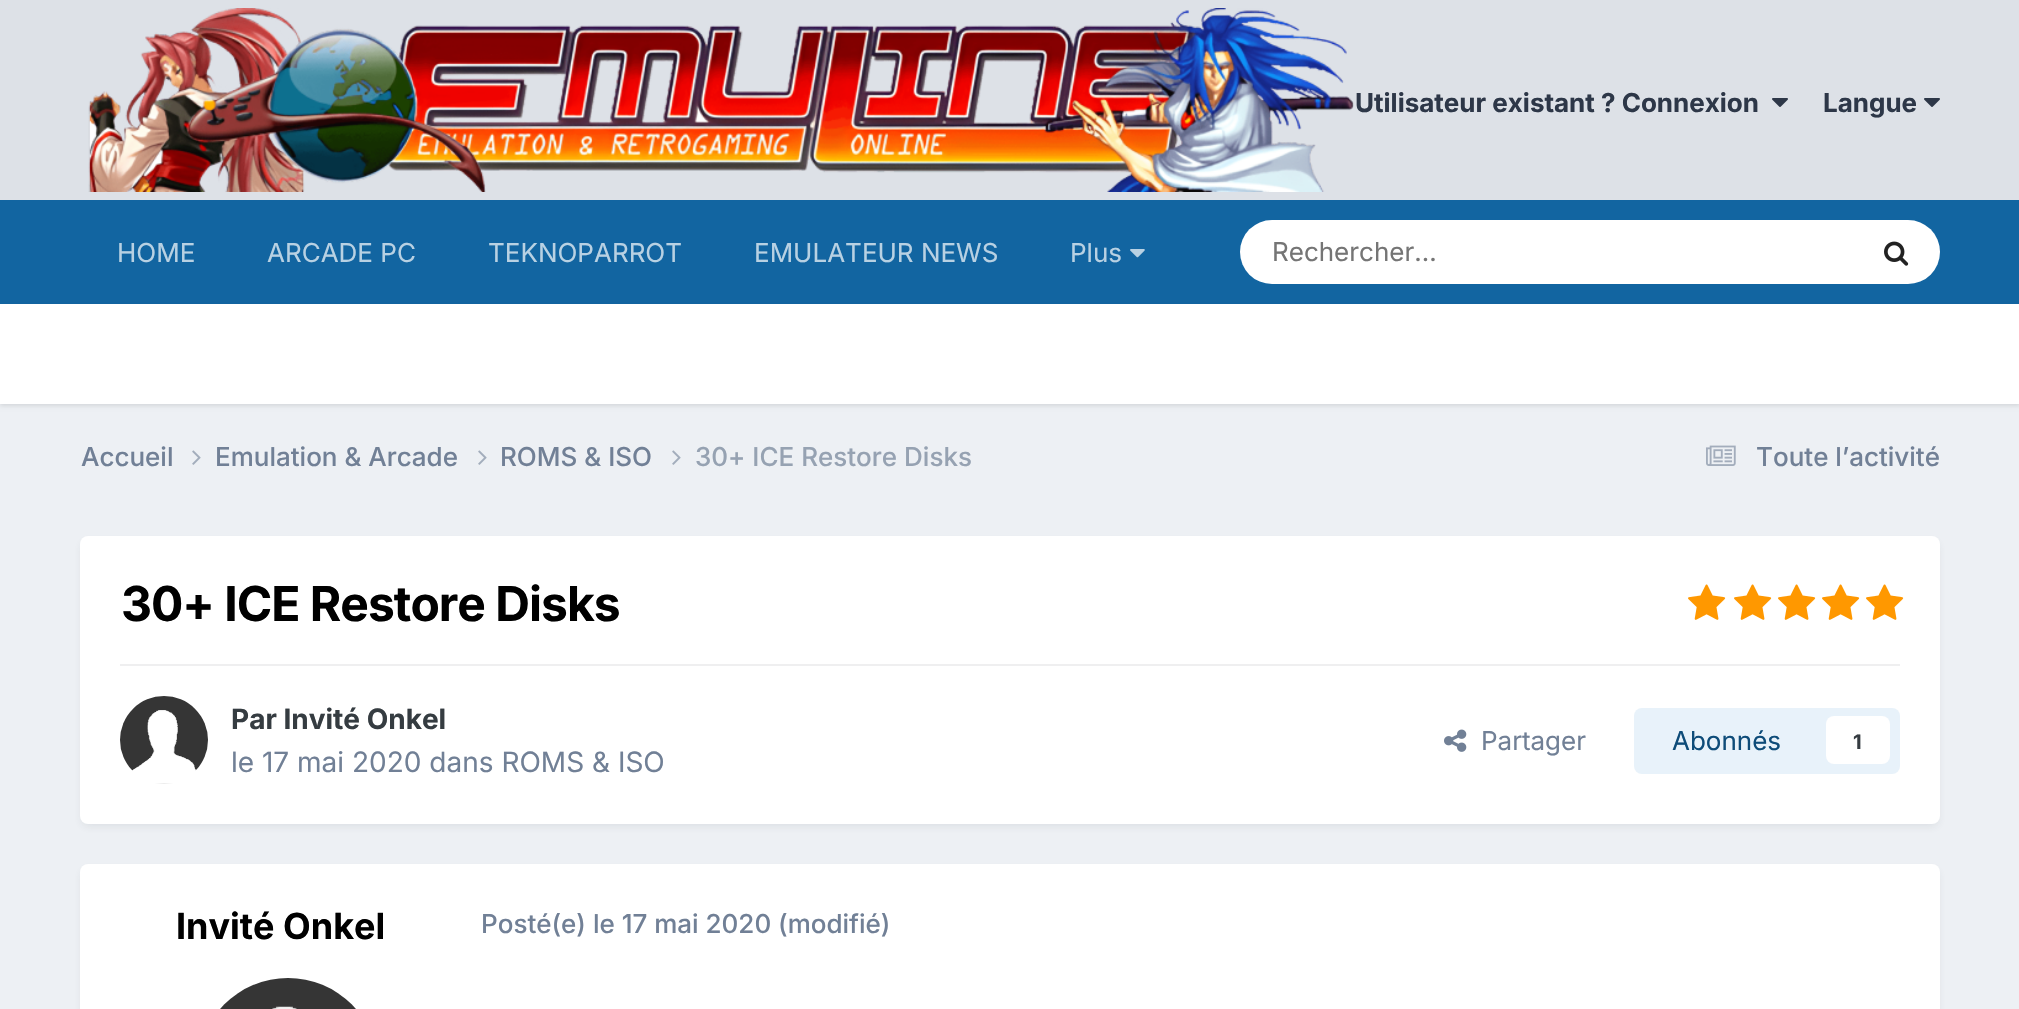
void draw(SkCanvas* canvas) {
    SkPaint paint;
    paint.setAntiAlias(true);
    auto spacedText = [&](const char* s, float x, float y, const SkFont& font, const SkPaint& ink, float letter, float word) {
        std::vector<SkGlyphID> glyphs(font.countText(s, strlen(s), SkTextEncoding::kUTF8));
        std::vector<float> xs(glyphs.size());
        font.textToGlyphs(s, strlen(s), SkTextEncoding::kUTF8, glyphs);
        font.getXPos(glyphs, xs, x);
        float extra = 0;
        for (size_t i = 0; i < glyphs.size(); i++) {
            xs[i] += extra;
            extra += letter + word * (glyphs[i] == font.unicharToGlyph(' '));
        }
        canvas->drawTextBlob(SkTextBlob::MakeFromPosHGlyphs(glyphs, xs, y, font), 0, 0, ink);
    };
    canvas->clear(0xFFEDF0F4);
    paint.setColor(0xFFDDE1E7);
    canvas->drawRect(SkRect::MakeXYWH(0, 0, 2019, 200), paint);
    canvas->drawImageRect(SkImages::DeferredFromEncodedData(SkData::MakeFromFileName("img1.png")), SkRect::MakeXYWH(88, 8, 1266, 184), SkSamplingOptions());
    SkFont font1(fontMgr->matchFamilyStyle("Inter", SkFontStyle::Bold()), 26);
    font1.setSubpixel(true);
    paint.setColor(0xFF2D3748);
    canvas->drawString("Utilisateur existant ? Connexion", 1355, 112, font1, paint);
    canvas->drawImageRect(SkImages::DeferredFromEncodedData(SkData::MakeFromFileName("img2.png")), SkRect::MakeXYWH(1772, 98, 16, 9), SkSamplingOptions());
    canvas->drawString("Langue", 1823, 112, font1, paint);
    canvas->drawImageRect(SkImages::DeferredFromEncodedData(SkData::MakeFromFileName("img2.png")), SkRect::MakeXYWH(1924, 98, 16, 9), SkSamplingOptions());
    paint.setColor(0xFF1265A1);
    canvas->drawRect(SkRect::MakeXYWH(0, 200, 2019, 104), paint);
    SkFont font2(fontMgr->matchFamilyStyle("Inter", SkFontStyle::Normal()), 26);
    font2.setSubpixel(true);
    paint.setColor(0xFFB8D1E3);
    canvas->drawString("HOME", 117, 262, font2, paint);
    canvas->drawString("ARCADE PC", 267, 262, font2, paint);
    canvas->drawString("TEKNOPARROT", 488, 262, font2, paint);
    canvas->drawString("EMULATEUR NEWS", 754, 262, font2, paint);
    canvas->drawString("Plus", 1070, 262, font2, paint);
    canvas->drawImageRect(SkImages::DeferredFromEncodedData(SkData::MakeFromFileName("img3.png")), SkRect::MakeXYWH(1130, 249, 15, 9), SkSamplingOptions());
    paint.setColor(0xFFFFFFFF);
    canvas->drawRoundRect(SkRect::MakeXYWH(1240, 220, 700, 64), 32, 32, paint);
    paint.setColor(0xFF757575);
    canvas->drawString("Rechercher…", 1272, 261, font2, paint);
    canvas->drawImageRect(SkImages::DeferredFromEncodedData(SkData::MakeFromFileName("img4.png")), SkRect::MakeXYWH(1884, 241, 25, 25), SkSamplingOptions());
    paint.setColor(0x1A000000);
    paint.setMaskFilter(SkMaskFilter::MakeBlur(kNormal_SkBlurStyle, 2));
    canvas->drawRect(SkRect::MakeXYWH(0, 306, 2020, 100), paint);
    paint.setMaskFilter(nullptr);
    paint.setColor(0xFFFFFFFF);
    canvas->drawRect(SkRect::MakeXYWH(0, 304, 2019, 100), paint);
    SkFont font3(fontMgr->matchFamilyStyle("Inter", SkFontStyle(500, SkFontStyle::kNormal_Width, SkFontStyle::kUpright_Slant)), 26);
    font3.setSubpixel(true);
    paint.setColor(0xFF718096);
    canvas->drawString("Accueil", 81, 466, font3, paint);
    canvas->drawImageRect(SkImages::DeferredFromEncodedData(SkData::MakeFromFileName("img5.png")), SkRect::MakeXYWH(192, 450, 9, 15), SkSamplingOptions());
    canvas->drawString("Emulation & Arcade", 215, 466, font3, paint);
    canvas->drawImageRect(SkImages::DeferredFromEncodedData(SkData::MakeFromFileName("img5.png")), SkRect::MakeXYWH(478, 450, 9, 15), SkSamplingOptions());
    canvas->drawString("ROMS & ISO", 500, 466, font3, paint);
    canvas->drawImageRect(SkImages::DeferredFromEncodedData(SkData::MakeFromFileName("img5.png")), SkRect::MakeXYWH(672, 450, 9, 15), SkSamplingOptions());
    paint.setColor(0xFF96A2B2);
    canvas->drawString("30+ ICE Restore Disks", 695, 466, font3, paint);
    canvas->drawImageRect(SkImages::DeferredFromEncodedData(SkData::MakeFromFileName("img6.png")), SkRect::MakeXYWH(1706, 445, 30, 21), SkSamplingOptions());
    paint.setColor(0xFF718096);
    canvas->drawString("Toute l’activité", 1756, 466, font3, paint);
    paint.setColor(0x1A2D3748);
    paint.setMaskFilter(SkMaskFilter::MakeBlur(kNormal_SkBlurStyle, 4));
    canvas->drawRoundRect(SkRect::MakeXYWH(82, 542, 1856, 284), 6, 6, paint);
    paint.setMaskFilter(nullptr);
    paint.setColor(0xFFFFFFFF);
    canvas->drawRoundRect(SkRect::MakeXYWH(80, 536, 1860, 288), 8, 8, paint);
    SkFont font4(fontMgr->matchFamilyStyle("Inter", SkFontStyle::Bold()), 48);
    font4.setSubpixel(true);
    paint.setColor(0xFF000000);
    spacedText("30+ ICE Restore Disks", 121, 621, font4, paint, -1, 0);
    canvas->drawImageRect(SkImages::DeferredFromEncodedData(SkData::MakeFromFileName("img7.png")), SkRect::MakeXYWH(1688, 584, 38, 36), SkSamplingOptions());
    canvas->drawImageRect(SkImages::DeferredFromEncodedData(SkData::MakeFromFileName("img7.png")), SkRect::MakeXYWH(1734, 584, 38, 36), SkSamplingOptions());
    canvas->drawImageRect(SkImages::DeferredFromEncodedData(SkData::MakeFromFileName("img7.png")), SkRect::MakeXYWH(1778, 584, 38, 36), SkSamplingOptions());
    canvas->drawImageRect(SkImages::DeferredFromEncodedData(SkData::MakeFromFileName("img7.png")), SkRect::MakeXYWH(1822, 584, 38, 36), SkSamplingOptions());
    canvas->drawImageRect(SkImages::DeferredFromEncodedData(SkData::MakeFromFileName("img7.png")), SkRect::MakeXYWH(1866, 584, 38, 36), SkSamplingOptions());
    paint.setColor(0xFFEFEFF0);
    canvas->drawRect(SkRect::MakeXYWH(120, 664, 1780, 2), paint);
    canvas->drawImageRect(SkImages::DeferredFromEncodedData(SkData::MakeFromFileName("img8.png")), SkRect::MakeXYWH(120, 696, 88, 88), SkSamplingOptions());
    SkFont font5(fontMgr->matchFamilyStyle("Inter", SkFontStyle::Bold()), 28);
    font5.setSubpixel(true);
    paint.setColor(0xFF353C41);
    canvas->drawString("Par Invité Onkel", 231, 729, font5, paint);
    SkFont font6(fontMgr->matchFamilyStyle("Inter", SkFontStyle::Normal()), 28);
    font6.setSubpixel(true);
    paint.setColor(0xFF718096);
    canvas->drawString("le 17 mai 2020 dans ROMS & ISO", 231, 772, font6, paint);
    canvas->drawImageRect(SkImages::DeferredFromEncodedData(SkData::MakeFromFileName("img9.png")), SkRect::MakeXYWH(1444, 729, 23, 23), SkSamplingOptions());
    canvas->drawString("Partager", 1481, 750, font2, paint);
    paint.setColor(0xFFE8F2FA);
    canvas->drawRoundRect(SkRect::MakeXYWH(1634, 708, 266, 66), 8, 8, paint);
    paint.setColor(0xFF0E4C79);
    canvas->drawString("Abonnés", 1672, 750, font2, paint);
    paint.setColor(0xFFFFFFFF);
    canvas->drawRoundRect(SkRect::MakeXYWH(1826, 716, 64, 48), 8, 8, paint);
    SkFont font7(fontMgr->matchFamilyStyle("Inter", SkFontStyle::Bold()), 20);
    font7.setSubpixel(true);
    paint.setColor(0xFF353C41);
    canvas->drawString("1", 1853, 749, font7, paint);
    paint.setColor(0x1A2D3748);
    paint.setMaskFilter(SkMaskFilter::MakeBlur(kNormal_SkBlurStyle, 4));
    canvas->drawRoundRect(SkRect::MakeXYWH(82, 870, 1856, 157), 6, 6, paint);
    paint.setMaskFilter(nullptr);
    paint.setColor(0xFFFFFFFF);
    canvas->drawRoundRect(SkRect::MakeXYWH(80, 864, 1860, 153), 8, 8, paint);
    SkFont font8(fontMgr->matchFamilyStyle("Inter", SkFontStyle::Bold()), 36);
    font8.setSubpixel(true);
    paint.setColor(0xFF000000);
    canvas->drawString("Invité Onkel", 176, 939, font8, paint);
    canvas->drawImageRect(SkImages::DeferredFromEncodedData(SkData::MakeFromFileName("img10.png")), SkRect::MakeXYWH(220, 978, 136, 31), SkSamplingOptions());
    paint.setColor(0xFF718096);
    canvas->drawString("Posté(e) le 17 mai 2020 (modifié)", 481, 933, font3, paint);
}
